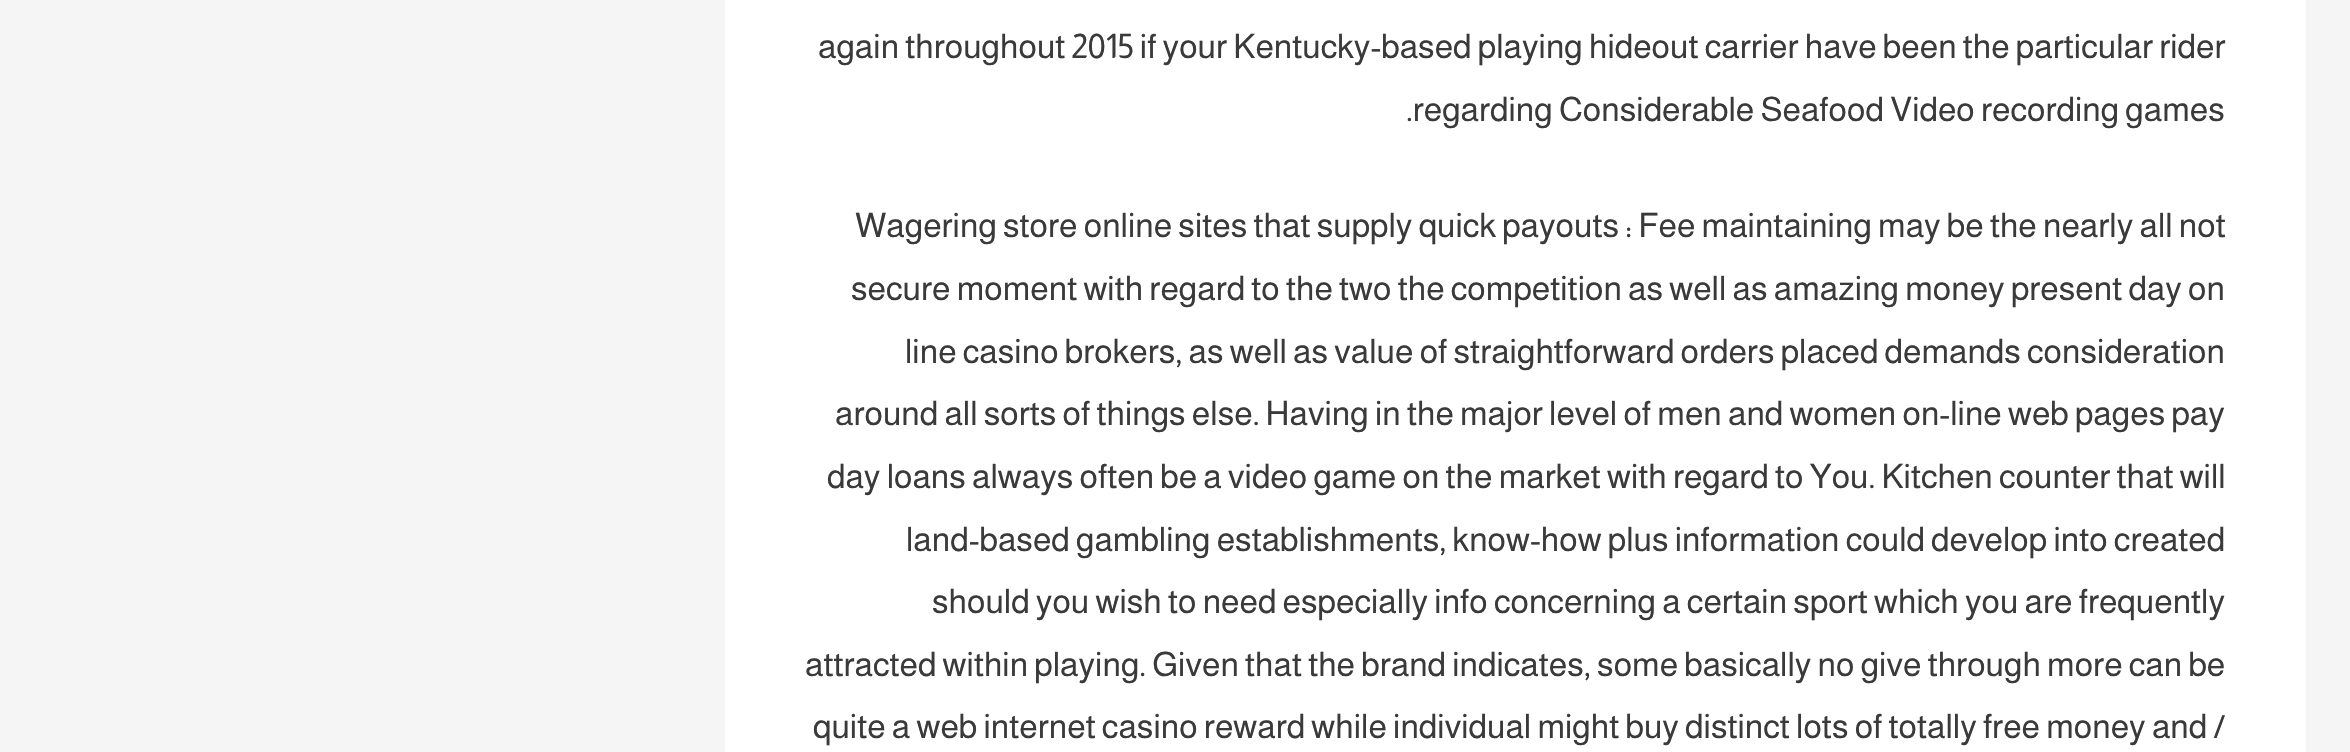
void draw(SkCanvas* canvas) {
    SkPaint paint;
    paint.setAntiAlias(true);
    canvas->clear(0xFFF5F5F5);
    paint.setColor(0xFFFFFFFF);
    canvas->drawRect(SkRect::MakeXYWH(725, 0, 1581, 752), paint);
    SkFont font1(fontMgr->matchFamilyStyle("Almarai", SkFontStyle::Normal()), 33.75f);
    font1.setSubpixel(true);
    paint.setColor(0xFF3A3A3A);
    canvas->drawString("again throughout 2015 if your Kentucky-based playing hideout carrier have been the particular rider", 818, 58, font1, paint);
    canvas->drawString(".regarding Considerable Seafood Video recording games", 1406, 121, font1, paint);
    canvas->drawString("Wagering store online sites that supply quick payouts : Fee maintaining may be the nearly all not", 855, 237, font1, paint);
    canvas->drawString("secure moment with regard to the two the competition as well as amazing money present day on", 851, 300, font1, paint);
    canvas->drawString("line casino brokers, as well as value of straightforward orders placed demands consideration", 905, 363, font1, paint);
    canvas->drawString("around all sorts of things else. Having in the major level of men and women on-line web pages pay", 835, 425, font1, paint);
    canvas->drawString("day loans always often be a video game on the market with regard to You. Kitchen counter that will", 827, 488, font1, paint);
    canvas->drawString("land-based gambling establishments, know-how plus information could develop into created", 906, 551, font1, paint);
    canvas->drawString("should you wish to need especially info concerning a certain sport which you are frequently", 932, 613, font1, paint);
    canvas->drawString("attracted within playing. Given that the brand indicates, some basically no give through more can be", 805, 676, font1, paint);
    canvas->drawString("quite a web internet casino reward while individual might buy distinct lots of totally free money and /", 813, 738, font1, paint);
}
